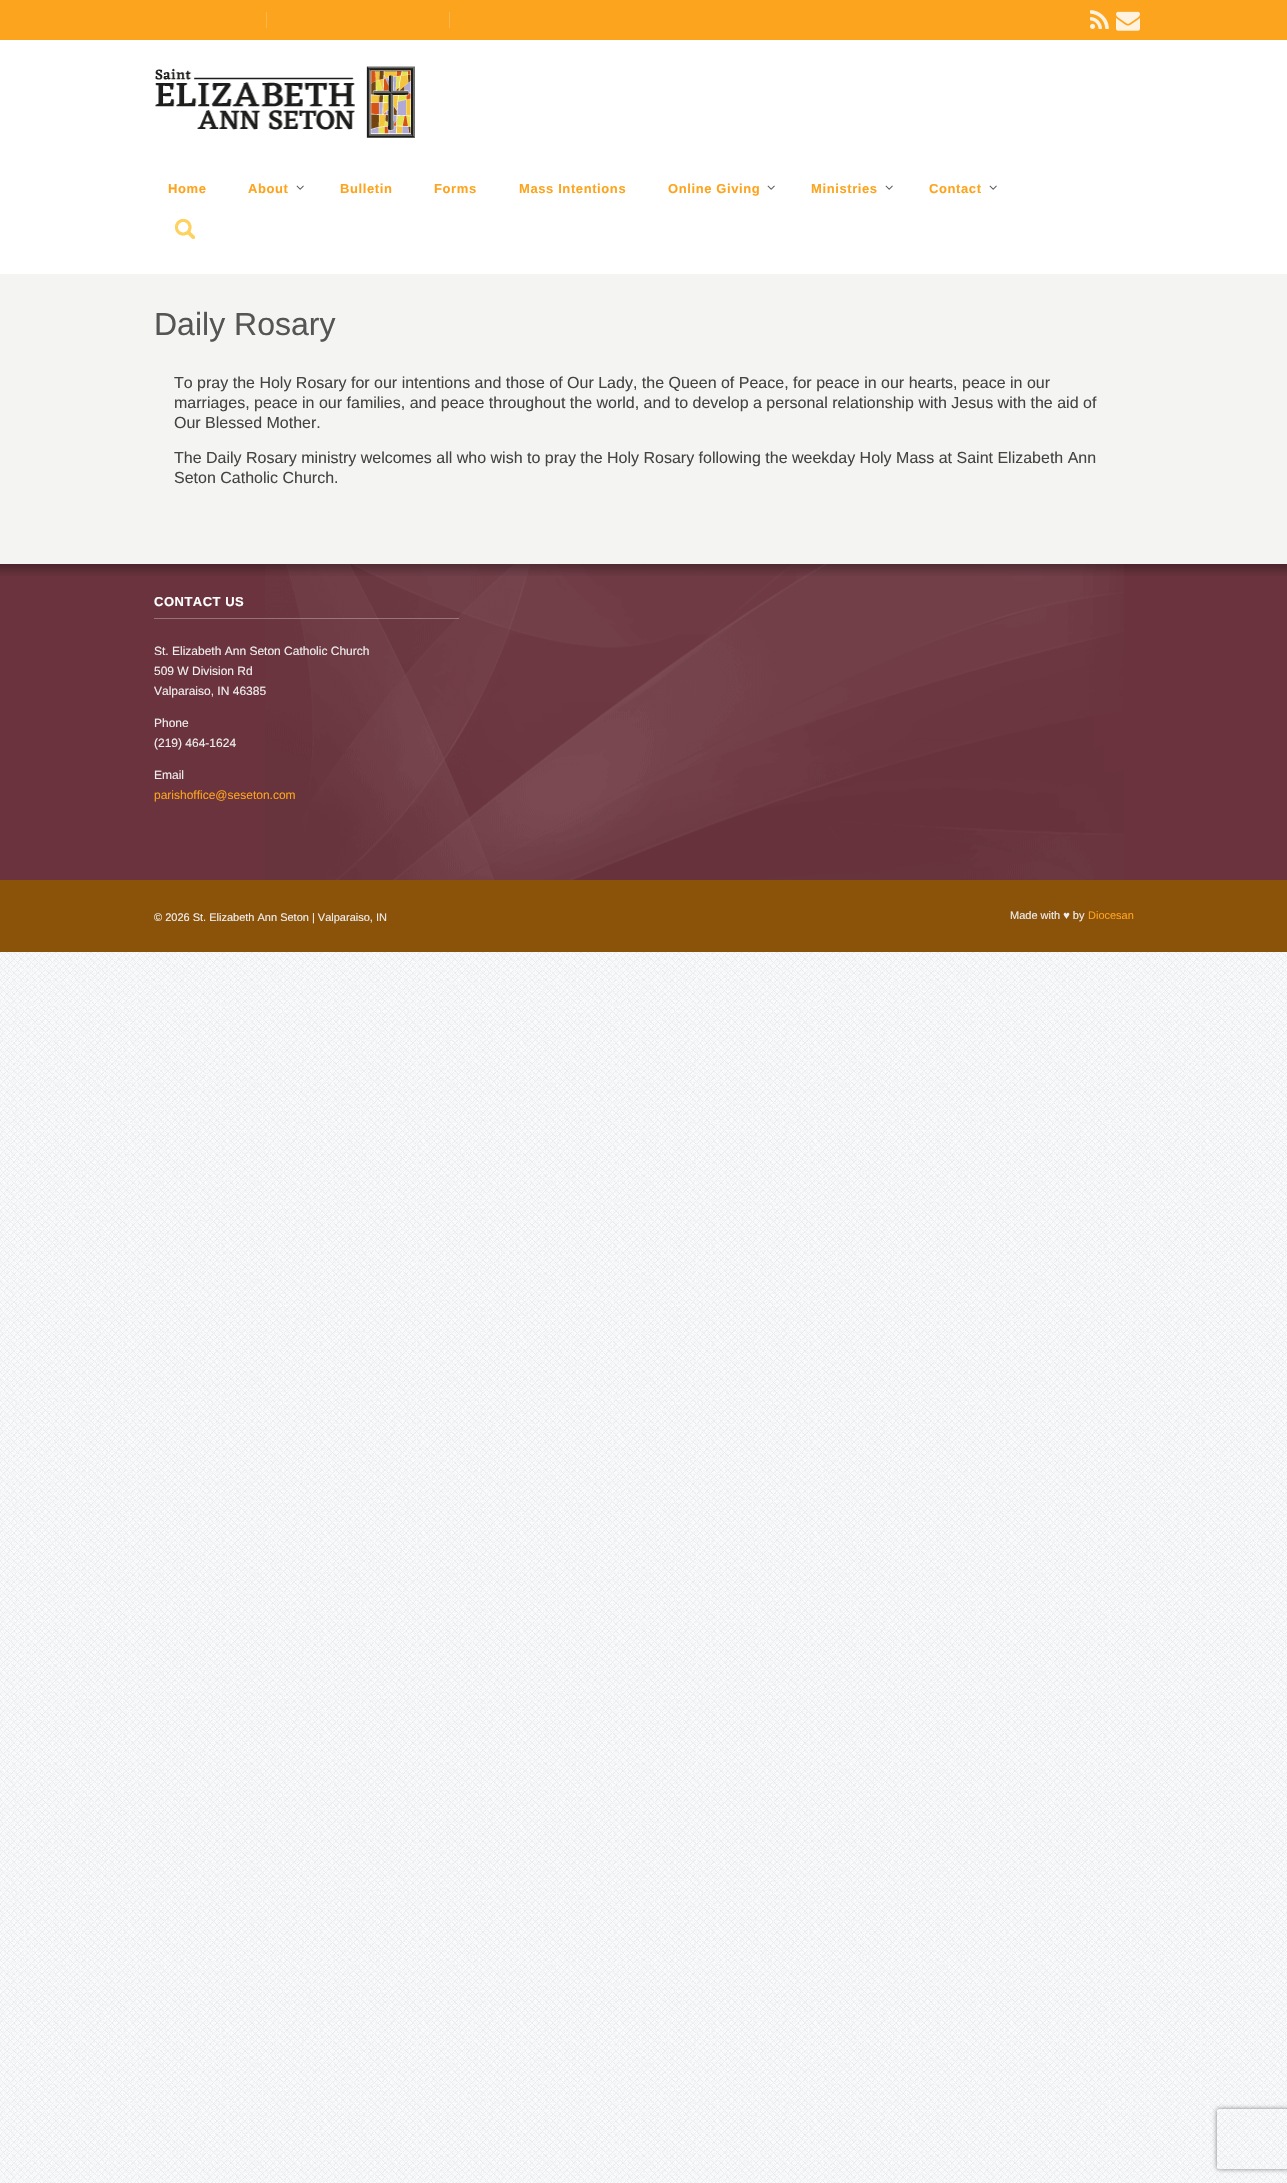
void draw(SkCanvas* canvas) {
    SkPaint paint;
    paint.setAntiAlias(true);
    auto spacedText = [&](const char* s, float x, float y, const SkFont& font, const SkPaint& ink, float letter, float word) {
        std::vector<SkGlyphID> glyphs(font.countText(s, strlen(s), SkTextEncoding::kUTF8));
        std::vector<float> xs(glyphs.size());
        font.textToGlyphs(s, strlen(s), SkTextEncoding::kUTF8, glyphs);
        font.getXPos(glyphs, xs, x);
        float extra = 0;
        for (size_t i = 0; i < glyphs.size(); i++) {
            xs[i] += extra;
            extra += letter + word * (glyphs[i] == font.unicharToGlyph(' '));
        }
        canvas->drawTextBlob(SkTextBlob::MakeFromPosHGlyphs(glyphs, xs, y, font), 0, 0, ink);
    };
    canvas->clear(0xFFFFFFFF);
    canvas->drawImageRect(SkImages::DeferredFromEncodedData(SkData::MakeFromFileName("img1.png")), SkRect::MakeXYWH(0, 952, 1287, 1231), SkSamplingOptions());
    paint.setColor(0xFFF4F4F2);
    canvas->drawRect(SkRect::MakeXYWH(0, 274, 1287, 290), paint);
    paint.setColor(0xFFFDA41E);
    canvas->drawRect(SkRect::MakeXYWH(0, 0, 1287, 40), paint);
    paint.setColor(0xFFFDB64B);
    canvas->drawRect(SkRect::MakeXYWH(266, 12, 1, 16), paint);
    canvas->drawRect(SkRect::MakeXYWH(449, 12, 1, 16), paint);
    canvas->drawImageRect(SkImages::DeferredFromEncodedData(SkData::MakeFromFileName("img2.png")), SkRect::MakeXYWH(1090, 10, 19, 19), SkSamplingOptions());
    canvas->drawImageRect(SkImages::DeferredFromEncodedData(SkData::MakeFromFileName("img3.png")), SkRect::MakeXYWH(1116, 11, 24, 20), SkSamplingOptions());
    canvas->drawImageRect(SkImages::DeferredFromEncodedData(SkData::MakeFromFileName("img4.png")), SkRect::MakeXYWH(155, 66, 260, 72), SkSamplingOptions());
    SkFont font1(fontMgr->matchFamilyStyle("Liberation Sans", SkFontStyle::Bold()), 13);
    font1.setSubpixel(true);
    paint.setColor(0xFFFDA41E);
    spacedText("Home", 168, 193, font1, paint, 0.6f, 0);
    spacedText("About", 248, 193, font1, paint, 0.6f, 0);
    canvas->drawImageRect(SkImages::DeferredFromEncodedData(SkData::MakeFromFileName("img5.png")), SkRect::MakeXYWH(296, 185, 8, 5), SkSamplingOptions());
    spacedText("Bulletin", 340, 193, font1, paint, 0.6f, 0);
    spacedText("Forms", 434, 193, font1, paint, 0.6f, 0);
    spacedText("Mass Intentions", 519, 193, font1, paint, 0.6f, 0);
    spacedText("Online Giving", 668, 193, font1, paint, 0.6f, 0);
    canvas->drawImageRect(SkImages::DeferredFromEncodedData(SkData::MakeFromFileName("img5.png")), SkRect::MakeXYWH(767, 185, 8, 5), SkSamplingOptions());
    spacedText("Ministries", 811, 193, font1, paint, 0.6f, 0);
    canvas->drawImageRect(SkImages::DeferredFromEncodedData(SkData::MakeFromFileName("img5.png")), SkRect::MakeXYWH(885, 185, 8, 5), SkSamplingOptions());
    spacedText("Contact", 929, 193, font1, paint, 0.6f, 0);
    canvas->drawImageRect(SkImages::DeferredFromEncodedData(SkData::MakeFromFileName("img5.png")), SkRect::MakeXYWH(989, 185, 8, 5), SkSamplingOptions());
    canvas->drawImageRect(SkImages::DeferredFromEncodedData(SkData::MakeFromFileName("img6.png")), SkRect::MakeXYWH(175, 219, 20, 20), SkSamplingOptions());
    SkFont font2(fontMgr->matchFamilyStyle("Liberation Sans", SkFontStyle::Normal()), 32);
    font2.setSubpixel(true);
    paint.setColor(0xFF555555);
    canvas->drawString("Daily Rosary", 154, 335, font2, paint);
    SkFont font3(fontMgr->matchFamilyStyle("Liberation Sans", SkFontStyle::Normal()), 16);
    font3.setSubpixel(true);
    paint.setColor(0xFF444444);
    canvas->drawString("To pray the Holy Rosary for our intentions and those of Our Lady, the Queen of Peace, for peace in our hearts, peace in our", 174, 388, font3, paint);
    canvas->drawString("marriages, peace in our families, and peace throughout the world, and to develop a personal relationship with Jesus with the aid of", 174, 408, font3, paint);
    canvas->drawString("Our Blessed Mother.", 174, 428, font3, paint);
    canvas->drawString("The Daily Rosary ministry welcomes all who wish to pray the Holy Rosary following the weekday Holy Mass at Saint Elizabeth Ann", 174, 463, font3, paint);
    canvas->drawString("Seton Catholic Church.", 174, 483, font3, paint);
    paint.setColor(0xFF6A333D);
    canvas->drawRect(SkRect::MakeXYWH(0, 564, 1287, 316), paint);
    canvas->drawImageRect(SkImages::DeferredFromEncodedData(SkData::MakeFromFileName("img7.png")), SkRect::MakeXYWH(265, 564, 859, 316), SkSamplingOptions());
    canvas->drawImageRect(SkImages::DeferredFromEncodedData(SkData::MakeFromFileName("img8.png")), SkRect::MakeXYWH(0, 564, 1287, 12), SkSamplingOptions());
    paint.setColor(0x4DFFFFFF);
    canvas->drawRect(SkRect::MakeXYWH(154, 618, 305, 1), paint);
    paint.setColor(0xFFFFFFFF);
    spacedText("CONTACT US", 154, 606, font1, paint, 0.5f, 0);
    SkFont font4(fontMgr->matchFamilyStyle("Liberation Sans", SkFontStyle::Normal()), 12);
    font4.setSubpixel(true);
    paint.setColor(0xFFEEEEEE);
    canvas->drawString("St. Elizabeth Ann Seton Catholic Church", 154, 655, font4, paint);
    canvas->drawString("509 W Division Rd", 154, 675, font4, paint);
    canvas->drawString("Valparaiso, IN 46385", 154, 695, font4, paint);
    canvas->drawString("Phone", 154, 727, font4, paint);
    canvas->drawString("(219) 464-1624", 154, 747, font4, paint);
    canvas->drawString("Email", 154, 779, font4, paint);
    paint.setColor(0xFFFDA41E);
    canvas->drawString("parishoffice@seseton.com", 154, 799, font4, paint);
    paint.setColor(0xFF8B5209);
    canvas->drawRect(SkRect::MakeXYWH(0, 880, 1287, 72), paint);
    canvas->save();
    canvas->clipRect(SkRect::MakeXYWH(154, 905, 980, 22));
    SkFont font5(fontMgr->matchFamilyStyle("Liberation Sans", SkFontStyle::Normal()), 11);
    font5.setSubpixel(true);
    paint.setColor(0xFFEEEEEE);
    canvas->drawString("© 2026 St. Elizabeth Ann Seton | Valparaiso, IN", 154, 921, font5, paint);
    canvas->restore();
    canvas->drawString("Made with ♥ by", 1010, 919, font5, paint);
    paint.setColor(0xFFFDA41E);
    canvas->drawString("Diocesan", 1088, 919, font5, paint);
    canvas->save();
    canvas->clipPath(SkPathBuilder(SkPathFillType::kEvenOdd).moveTo(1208, 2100).lineTo(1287, 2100).lineTo(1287, 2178).lineTo(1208, 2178).close().moveTo(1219, 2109).lineTo(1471, 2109).cubicTo(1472, 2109, 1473, 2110, 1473, 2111).lineTo(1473, 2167).cubicTo(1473, 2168, 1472, 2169, 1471, 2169).lineTo(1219, 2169).cubicTo(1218, 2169, 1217, 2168, 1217, 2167).lineTo(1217, 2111).cubicTo(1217, 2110, 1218, 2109, 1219, 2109).close().detach(), true);
    paint.setColor(0xFF808080);
    paint.setMaskFilter(SkMaskFilter::MakeBlur(kNormal_SkBlurStyle, 2.5f));
    canvas->drawRoundRect(SkRect::MakeXYWH(1217, 2109, 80, 60), 2, 2, paint);
    paint.setMaskFilter(nullptr);
    canvas->restore();
}
